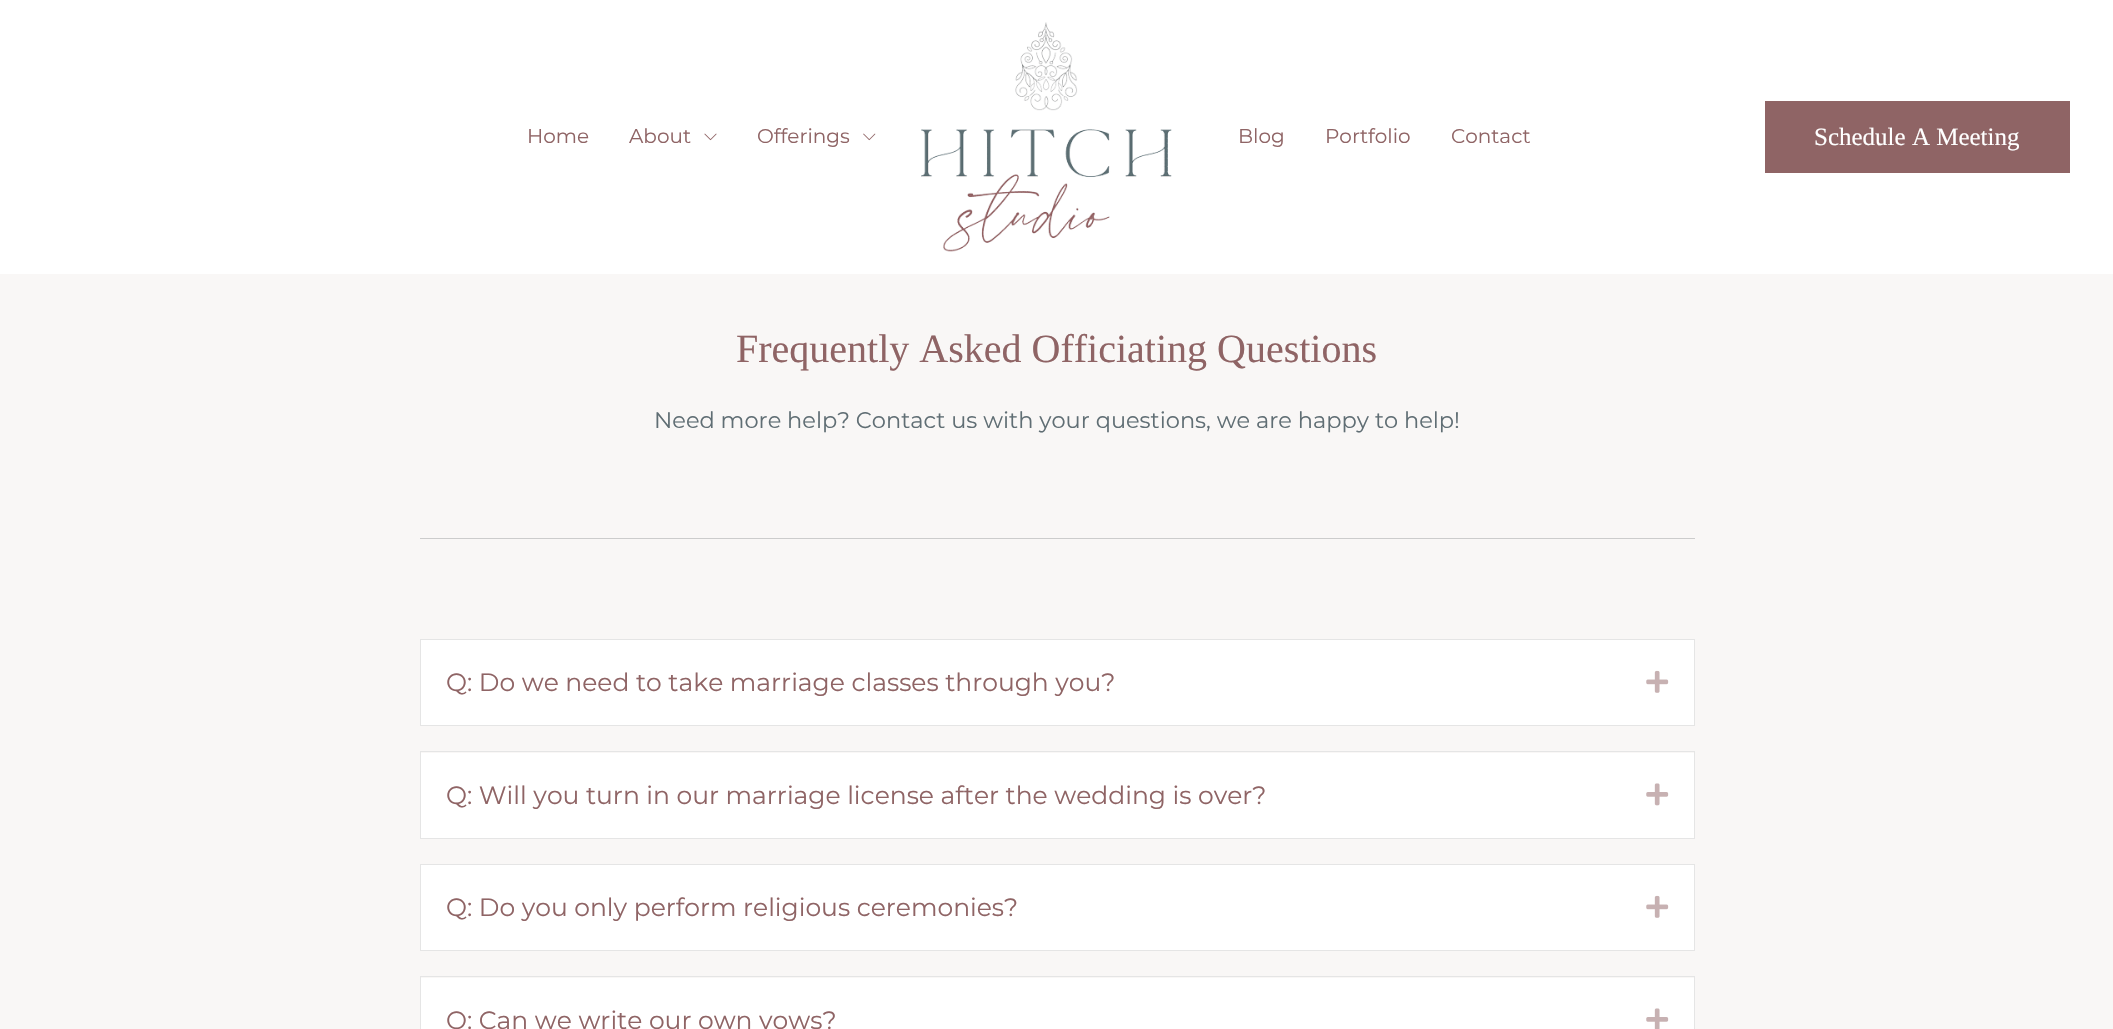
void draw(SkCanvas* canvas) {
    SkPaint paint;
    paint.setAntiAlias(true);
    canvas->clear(0xFFF9F7F6);
    paint.setColor(0xFFFFFFFF);
    canvas->drawRect(SkRect::MakeXYWH(0, 0, 2113, 274), paint);
    SkFont font1(fontMgr->matchFamilyStyle("Montserrat", SkFontStyle(100, SkFontStyle::kNormal_Width, SkFontStyle::kUpright_Slant)), 20);
    font1.setSubpixel(true);
    paint.setColor(0xFF8F6465);
    canvas->drawString("Home", 527, 143, font1, paint);
    canvas->drawString("About", 629, 143, font1, paint);
    canvas->drawImageRect(SkImages::DeferredFromEncodedData(SkData::MakeFromFileName("img1.png")), SkRect::MakeXYWH(704, 133, 13, 8), SkSamplingOptions());
    canvas->drawString("Offerings", 757, 143, font1, paint);
    canvas->drawImageRect(SkImages::DeferredFromEncodedData(SkData::MakeFromFileName("img2.png")), SkRect::MakeXYWH(863, 133, 13, 8), SkSamplingOptions());
    canvas->drawImageRect(SkImages::DeferredFromEncodedData(SkData::MakeFromFileName("img3.png")), SkRect::MakeXYWH(921, 22, 251, 230), SkSamplingOptions());
    canvas->drawString("Blog", 1238, 143, font1, paint);
    canvas->drawString("Portfolio", 1325, 143, font1, paint);
    canvas->drawString("Contact", 1451, 143, font1, paint);
    canvas->drawRect(SkRect::MakeXYWH(1765, 101, 305, 72), paint);
    SkFont font2(fontMgr->matchFamilyStyle("Liberation Serif", SkFontStyle::Normal()), 25);
    font2.setSubpixel(true);
    paint.setColor(0xFFFFFFFF);
    canvas->drawString("Schedule A Meeting", 1814, 145, font2, paint);
    SkFont font3(fontMgr->matchFamilyStyle("Liberation Serif", SkFontStyle::Normal()), 40);
    font3.setSubpixel(true);
    paint.setColor(0xFF8F6465);
    canvas->drawString("Frequently Asked Officiating Questions", 736, 362, font3, paint);
    SkFont font4(fontMgr->matchFamilyStyle("Montserrat", SkFontStyle(100, SkFontStyle::kNormal_Width, SkFontStyle::kUpright_Slant)), 22.5f);
    font4.setSubpixel(true);
    paint.setColor(0xFF606E74);
    canvas->drawString("Need more help? Contact us with your questions, we are happy to help!", 654, 428, font4, paint);
    paint.setColor(0xFFCCCCCC);
    canvas->drawRect(SkRect::MakeXYWH(420, 538, 1275, 1), paint);
    paint.setStyle(SkPaint::kStroke_Style);
    paint.setStrokeWidth(1);
    paint.setColor(0xFFE5E5E5);
    canvas->drawRect(SkRect::MakeXYWH(420.5f, 639.5f, 1274, 86), paint);
    paint.setStyle(SkPaint::kFill_Style);
    paint.setColor(0xFFFFFFFF);
    canvas->drawRect(SkRect::MakeXYWH(421, 640, 1273, 85), paint);
    SkFont font5(fontMgr->matchFamilyStyle("Montserrat", SkFontStyle(100, SkFontStyle::kNormal_Width, SkFontStyle::kUpright_Slant)), 25);
    font5.setSubpixel(true);
    paint.setColor(0xFF8F6465);
    canvas->drawString("Q: Do we need to take marriage classes through you?", 446, 691, font5, paint);
    canvas->drawImageRect(SkImages::DeferredFromEncodedData(SkData::MakeFromFileName("img4.png")), SkRect::MakeXYWH(1646, 670, 23, 23), SkSamplingOptions());
    paint.setStyle(SkPaint::kStroke_Style);
    paint.setColor(0xFFE5E5E5);
    canvas->drawRect(SkRect::MakeXYWH(420.5f, 751.5f, 1274, 87), paint);
    paint.setStyle(SkPaint::kFill_Style);
    paint.setColor(0xFFFFFFFF);
    canvas->drawRect(SkRect::MakeXYWH(421, 753, 1273, 85), paint);
    paint.setColor(0xFF8F6465);
    canvas->drawString("Q: Will you turn in our marriage license after the wedding is over?", 446, 804, font5, paint);
    canvas->drawImageRect(SkImages::DeferredFromEncodedData(SkData::MakeFromFileName("img5.png")), SkRect::MakeXYWH(1646, 783, 23, 23), SkSamplingOptions());
    paint.setStyle(SkPaint::kStroke_Style);
    paint.setColor(0xFFE5E5E5);
    canvas->drawRect(SkRect::MakeXYWH(420.5f, 864.5f, 1274, 86), paint);
    paint.setStyle(SkPaint::kFill_Style);
    paint.setColor(0xFFFFFFFF);
    canvas->drawRect(SkRect::MakeXYWH(421, 865, 1273, 85), paint);
    paint.setColor(0xFF8F6465);
    canvas->drawString("Q: Do you only perform religious ceremonies?", 446, 916, font5, paint);
    canvas->drawImageRect(SkImages::DeferredFromEncodedData(SkData::MakeFromFileName("img4.png")), SkRect::MakeXYWH(1646, 895, 23, 23), SkSamplingOptions());
    paint.setStyle(SkPaint::kStroke_Style);
    paint.setColor(0xFFE5E5E5);
    canvas->drawRect(SkRect::MakeXYWH(420.5f, 976.5f, 1274, 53), paint);
    paint.setStyle(SkPaint::kFill_Style);
    paint.setColor(0xFFFFFFFF);
    canvas->drawRect(SkRect::MakeXYWH(421, 978, 1273, 51), paint);
    paint.setColor(0xFF8F6465);
    canvas->drawString("Q: Can we write our own vows?", 446, 1029, font5, paint);
    canvas->drawImageRect(SkImages::DeferredFromEncodedData(SkData::MakeFromFileName("img6.png")), SkRect::MakeXYWH(1646, 1008, 23, 21), SkSamplingOptions());
}
